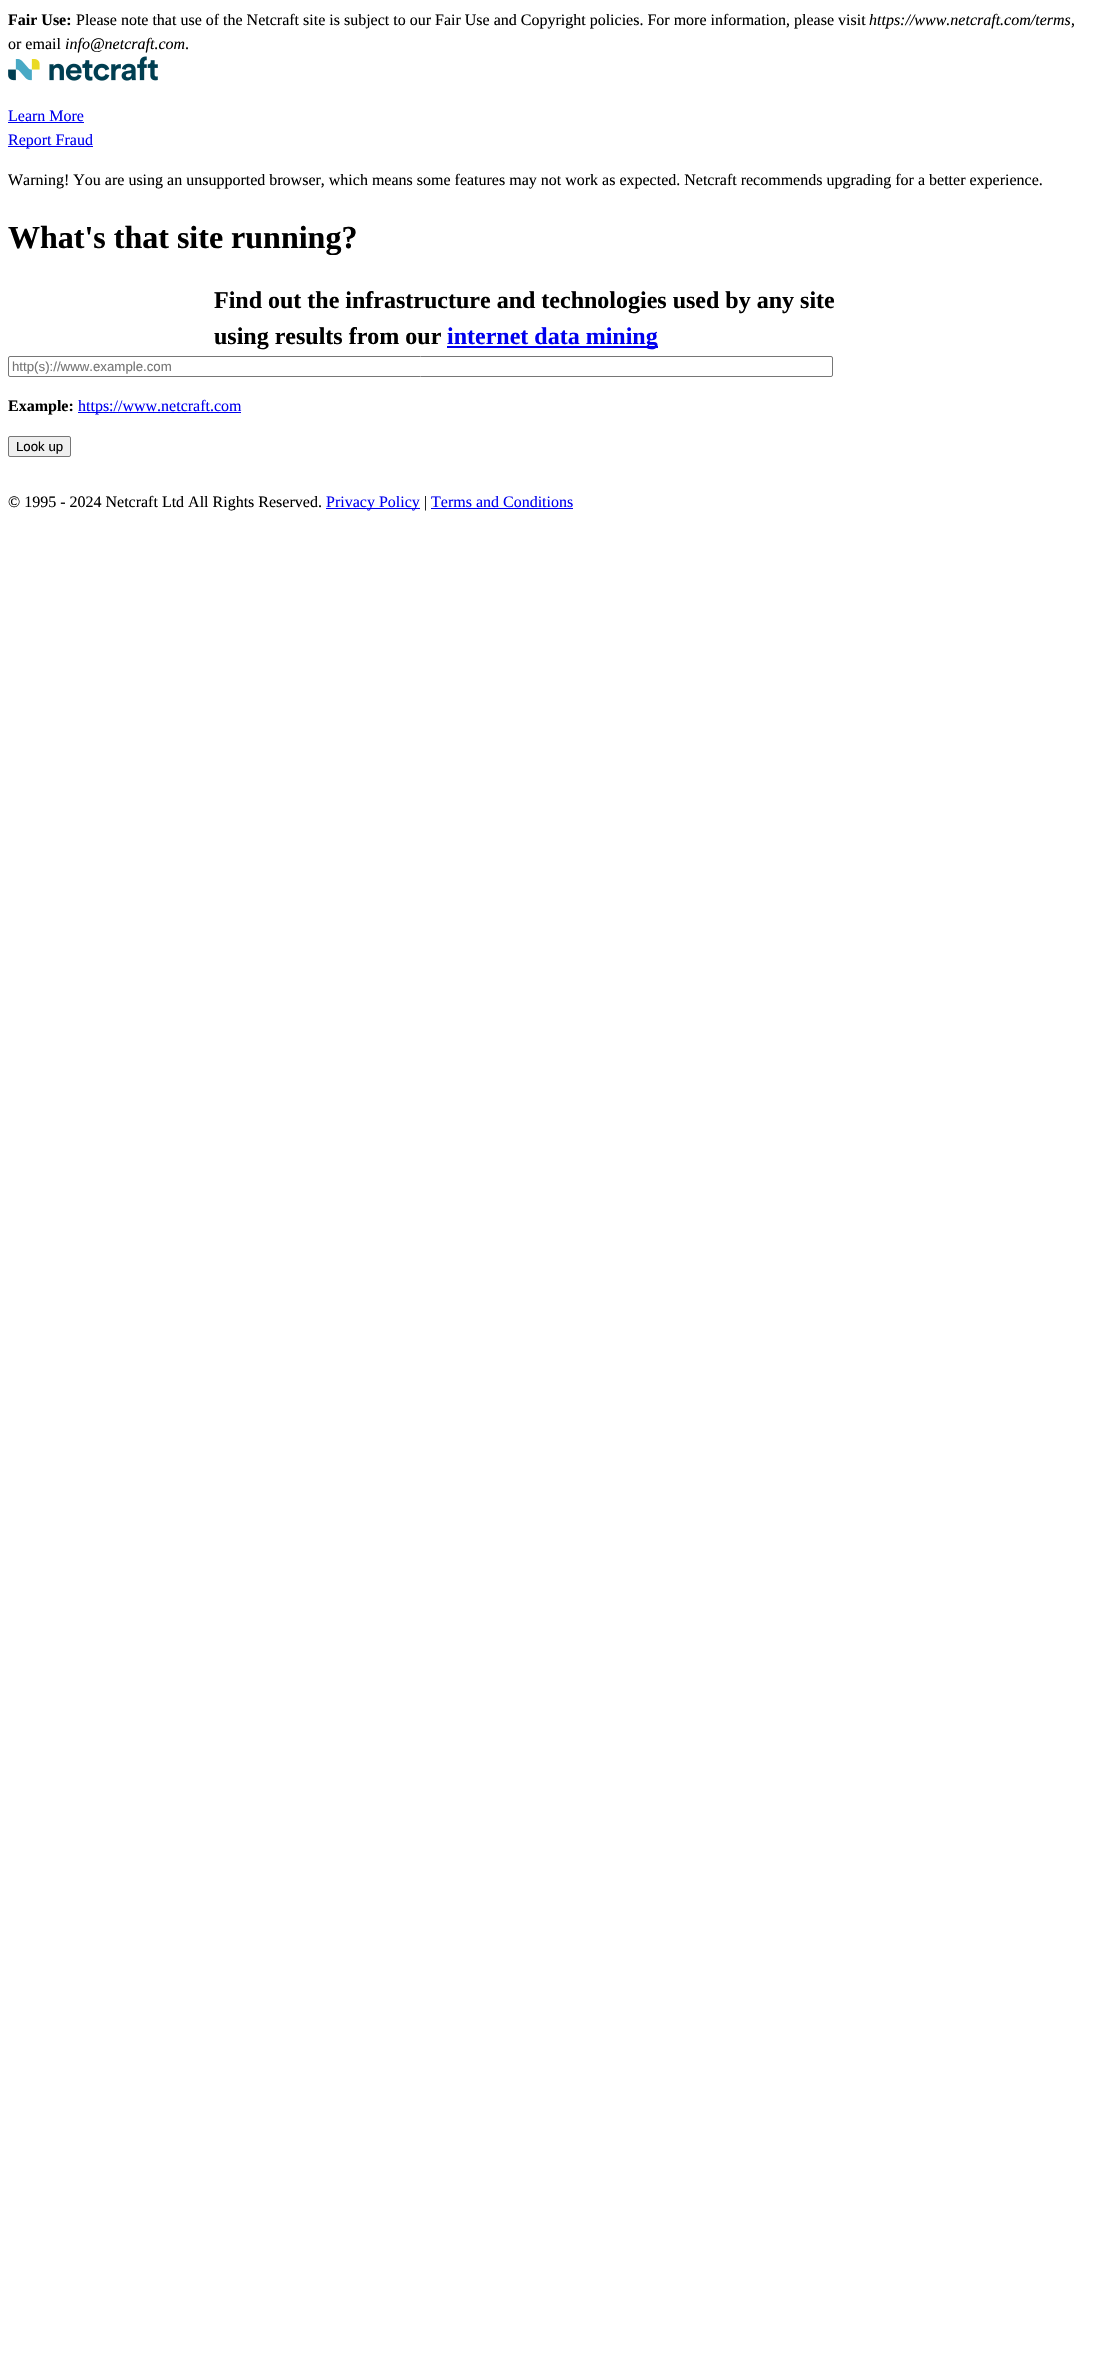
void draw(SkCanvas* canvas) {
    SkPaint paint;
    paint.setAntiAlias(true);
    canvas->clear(0xFFFFFFFF);
    SkFont font1(fontMgr->matchFamilyStyle("Liberation Serif", SkFontStyle::Bold()), 16);
    font1.setSubpixel(true);
    paint.setColor(0xFF000000);
    canvas->drawString("Fair Use:", 8, 25, font1, paint);
    SkFont font2(fontMgr->matchFamilyStyle("Liberation Serif", SkFontStyle::Normal()), 16);
    font2.setSubpixel(true);
    canvas->drawString("Please note that use of the Netcraft site is subject to our Fair Use and Copyright policies. For more information, please visit", 76, 25, font2, paint);
    SkFont font3(fontMgr->matchFamilyStyle("Liberation Serif", SkFontStyle::Italic()), 16);
    font3.setSubpixel(true);
    canvas->drawString("https://www.netcraft.com/terms", 869, 25, font3, paint);
    canvas->drawString(",", 1071, 25, font2, paint);
    canvas->drawString("or email", 8, 49, font2, paint);
    canvas->drawString("info@netcraft.com", 65, 49, font3, paint);
    canvas->drawString(".", 185, 49, font2, paint);
    canvas->drawImageRect(SkImages::DeferredFromEncodedData(SkData::MakeFromFileName("img1.png")), SkRect::MakeXYWH(8, 56, 150, 25), SkSamplingOptions());
    paint.setColor(0xFF0000EE);
    canvas->drawString("Learn More", 8, 121, font2, paint);
    canvas->drawRect(SkRect::MakeXYWH(8, 122, 76, 1), paint);
    canvas->drawRect(SkRect::MakeXYWH(8, 146, 85, 1), paint);
    canvas->drawString("Report Fraud", 8, 145, font2, paint);
    paint.setColor(0xFF000000);
    canvas->drawString("Warning! You are using an unsupported browser, which means some features may not work as expected. Netcraft recommends upgrading for a better experience.", 8, 185, font2, paint);
    SkFont font4(fontMgr->matchFamilyStyle("Liberation Serif", SkFontStyle::Bold()), 32);
    font4.setSubpixel(true);
    canvas->drawString("What's that site running?", 8, 248, font4, paint);
    SkFont font5(fontMgr->matchFamilyStyle("Liberation Serif", SkFontStyle::Bold()), 24);
    font5.setSubpixel(true);
    canvas->drawString("Find out the infrastructure and technologies used by any site", 214, 308, font5, paint);
    canvas->drawString("using results from our", 214, 344, font5, paint);
    paint.setColor(0xFF0000EE);
    canvas->drawRect(SkRect::MakeXYWH(447, 346, 211, 2), paint);
    canvas->drawString("internet data mining", 447, 344, font5, paint);
    paint.setStyle(SkPaint::kStroke_Style);
    paint.setStrokeWidth(1);
    paint.setColor(0xFF767676);
    canvas->drawRoundRect(SkRect::MakeXYWH(8.5f, 356.5f, 824, 20), 1.5f, 1.5f, paint);
    SkFont font6(fontMgr->matchFamilyStyle("Liberation Sans", SkFontStyle::Normal()), 13.25f);
    font6.setSubpixel(true);
    paint.setStyle(SkPaint::kFill_Style);
    paint.setColor(0xFF757575);
    canvas->drawString("http(s)://www.example.com", 12, 371, font6, paint);
    paint.setColor(0xFF000000);
    canvas->drawString("Example:", 8, 411, font1, paint);
    paint.setColor(0xFF0000EE);
    canvas->drawRect(SkRect::MakeXYWH(78, 412, 163, 1), paint);
    canvas->drawString("https://www.netcraft.com", 78, 411, font2, paint);
    paint.setColor(0xFFEFEFEF);
    canvas->drawRoundRect(SkRect::MakeXYWH(8.5f, 436.5f, 62, 20), 1.5f, 1.5f, paint);
    paint.setStyle(SkPaint::kStroke_Style);
    paint.setColor(0xFF767676);
    canvas->drawRoundRect(SkRect::MakeXYWH(8.5f, 436.5f, 62, 20), 1.5f, 1.5f, paint);
    paint.setStyle(SkPaint::kFill_Style);
    paint.setColor(0xFF000000);
    canvas->drawString("Look up", 16, 451, font6, paint);
    canvas->drawString("© 1995 - 2024 Netcraft Ltd All Rights Reserved.", 8, 507, font2, paint);
    paint.setColor(0xFF0000EE);
    canvas->drawRect(SkRect::MakeXYWH(326, 508, 94, 1), paint);
    canvas->drawString("Privacy Policy", 326, 507, font2, paint);
    paint.setColor(0xFF000000);
    canvas->drawString("|", 424, 507, font2, paint);
    paint.setColor(0xFF0000EE);
    canvas->drawString("Terms and Conditions", 431, 507, font2, paint);
    canvas->drawRect(SkRect::MakeXYWH(431, 508, 142, 1), paint);
}
